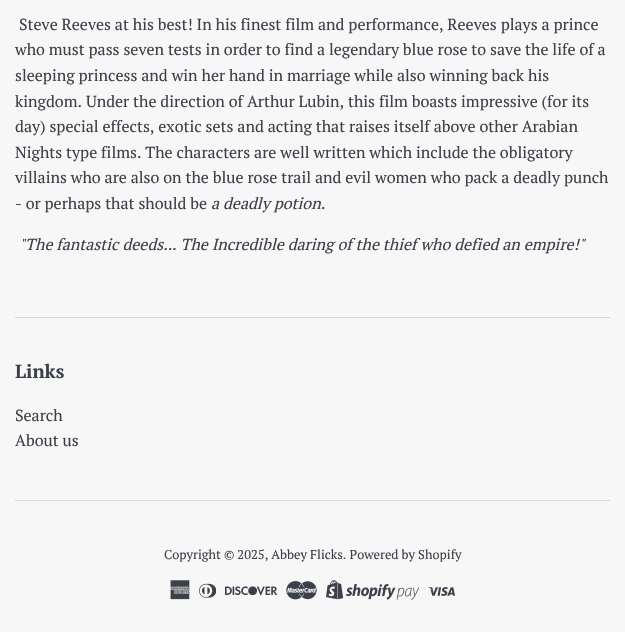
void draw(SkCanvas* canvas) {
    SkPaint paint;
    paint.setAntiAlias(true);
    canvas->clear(0xFFF7F7F7);
    SkFont font1(fontMgr->matchFamilyStyle("PT Serif", SkFontStyle::Normal()), 16);
    font1.setSubpixel(true);
    paint.setColor(0xFF3C4049);
    canvas->drawString("Steve Reeves at his best! In his finest film and performance, Reeves plays a prince", 19, 30, font1, paint);
    canvas->drawString("who must pass seven tests in order to find a legendary blue rose to save the life of a", 15, 55, font1, paint);
    canvas->drawString("sleeping princess and win her hand in marriage while also winning back his", 15, 81, font1, paint);
    canvas->drawString("kingdom. Under the direction of Arthur Lubin, this film boasts impressive (for its", 15, 107, font1, paint);
    canvas->drawString("day) special effects, exotic sets and acting that raises itself above other Arabian", 15, 132, font1, paint);
    canvas->drawString("Nights type films. The characters are well written which include the obligatory", 15, 158, font1, paint);
    canvas->drawString("villains who are also on the blue rose trail and evil women who pack a deadly punch", 15, 183, font1, paint);
    canvas->drawString("- or perhaps that should be", 15, 209, font1, paint);
    SkFont font2(fontMgr->matchFamilyStyle("PT Serif", SkFontStyle::Italic()), 16);
    font2.setSubpixel(true);
    canvas->drawString("a deadly potion", 211, 209, font2, paint);
    canvas->drawString(".", 321, 209, font1, paint);
    canvas->drawString("\"The fantastic deeds... The Incredible daring of the thief who defied an empire!\"", 19, 250, font2, paint);
    paint.setColor(0xFFD7D8D2);
    canvas->drawRect(SkRect::MakeXYWH(15, 317, 595, 1), paint);
    SkFont font3(fontMgr->matchFamilyStyle("PT Serif", SkFontStyle::Bold()), 19);
    font3.setSubpixel(true);
    paint.setColor(0xFF3C4049);
    canvas->drawString("Links", 15, 378, font3, paint);
    canvas->drawString("Search", 15, 421, font1, paint);
    canvas->drawString("About us", 15, 446, font1, paint);
    paint.setColor(0xFFD7D8D2);
    canvas->drawRect(SkRect::MakeXYWH(15, 500, 595, 1), paint);
    SkFont font4(fontMgr->matchFamilyStyle("PT Serif", SkFontStyle::Normal()), 12.8f);
    font4.setSubpixel(true);
    paint.setColor(0xFF3C4049);
    canvas->drawString("Copyright © 2025, Abbey Flicks. Powered by Shopify", 164, 559, font4, paint);
    canvas->drawImageRect(SkImages::DeferredFromEncodedData(SkData::MakeFromFileName("img1.png")), SkRect::MakeXYWH(170, 580, 20, 20), SkSamplingOptions());
    canvas->drawImageRect(SkImages::DeferredFromEncodedData(SkData::MakeFromFileName("img2.png")), SkRect::MakeXYWH(199, 583, 17, 15), SkSamplingOptions());
    canvas->drawImageRect(SkImages::DeferredFromEncodedData(SkData::MakeFromFileName("img3.png")), SkRect::MakeXYWH(225, 586, 52, 10), SkSamplingOptions());
    canvas->drawImageRect(SkImages::DeferredFromEncodedData(SkData::MakeFromFileName("img4.png")), SkRect::MakeXYWH(286, 581, 31, 19), SkSamplingOptions());
    canvas->drawImageRect(SkImages::DeferredFromEncodedData(SkData::MakeFromFileName("img5.png")), SkRect::MakeXYWH(326, 580, 93, 20), SkSamplingOptions());
    canvas->drawImageRect(SkImages::DeferredFromEncodedData(SkData::MakeFromFileName("img6.png")), SkRect::MakeXYWH(428, 587, 27, 9), SkSamplingOptions());
}
